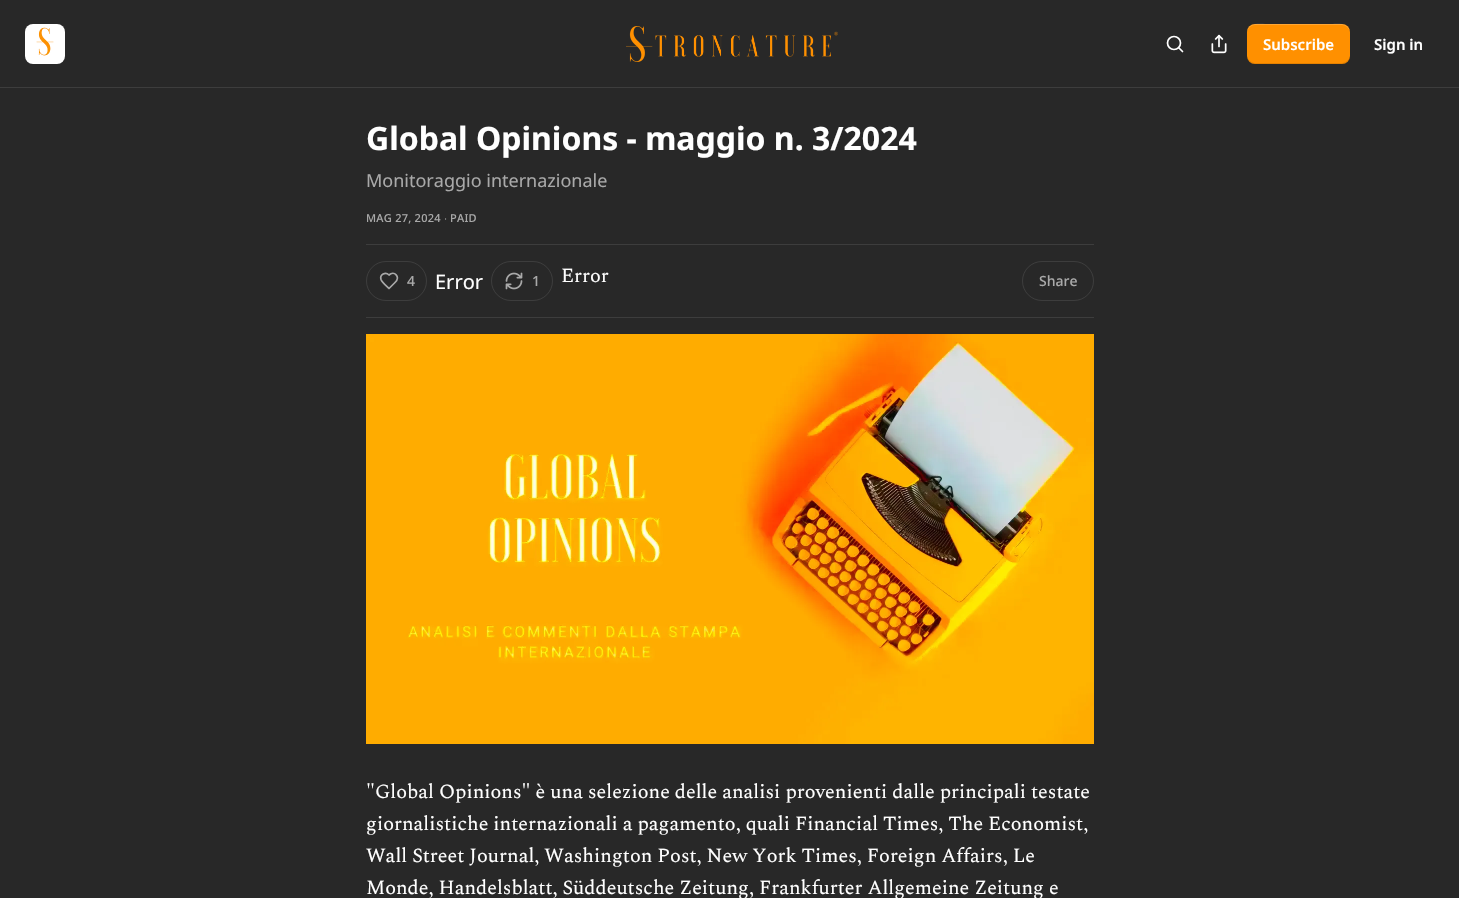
void draw(SkCanvas* canvas) {
    SkPaint paint;
    paint.setAntiAlias(true);
    auto spacedText = [&](const char* s, float x, float y, const SkFont& font, const SkPaint& ink, float letter, float word) {
        std::vector<SkGlyphID> glyphs(font.countText(s, strlen(s), SkTextEncoding::kUTF8));
        std::vector<float> xs(glyphs.size());
        font.textToGlyphs(s, strlen(s), SkTextEncoding::kUTF8, glyphs);
        font.getXPos(glyphs, xs, x);
        float extra = 0;
        for (size_t i = 0; i < glyphs.size(); i++) {
            xs[i] += extra;
            extra += letter + word * (glyphs[i] == font.unicharToGlyph(' '));
        }
        canvas->drawTextBlob(SkTextBlob::MakeFromPosHGlyphs(glyphs, xs, y, font), 0, 0, ink);
    };
    canvas->clear(0xFF282828);
    paint.setColor(0xFF3D3D3D);
    canvas->drawRect(SkRect::MakeXYWH(0, 87, 1459, 1), paint);
    paint.setColor(0xFFFFFFFF);
    canvas->drawRoundRect(SkRect::MakeXYWH(25, 24, 40, 40), 8, 8, paint);
    canvas->drawImageRect(SkImages::DeferredFromEncodedData(SkData::MakeFromFileName("img1.png")), SkRect::MakeXYWH(36, 27, 18, 29), SkSamplingOptions());
    canvas->drawImageRect(SkImages::DeferredFromEncodedData(SkData::MakeFromFileName("img2.png")), SkRect::MakeXYWH(626, 26, 212, 36), SkSamplingOptions());
    paint.setStyle(SkPaint::kStroke_Style);
    paint.setStrokeWidth(1.7f);
    canvas->drawCircle(1174, 43, 6.5f, paint);
    paint.setStrokeCap(SkPaint::kRound_Cap);
    paint.setStrokeJoin(SkPaint::kRound_Join);
    canvas->drawPath(SkPathBuilder().moveTo(1182.5f, 51.5f).lineTo(1179, 48).detach(), paint);
    canvas->drawImageRect(SkImages::DeferredFromEncodedData(SkData::MakeFromFileName("img3.png")), SkRect::MakeXYWH(1211, 34, 16, 20), SkSamplingOptions());
    paint.setStyle(SkPaint::kFill_Style);
    paint.setColor(0xFFFF9000);
    canvas->drawRoundRect(SkRect::MakeXYWH(1247, 24, 103, 40), 8, 8, paint);
    paint.setColor(0x1A000000);
    canvas->drawPath(SkPathBuilder().moveTo(1247, 55).cubicTo(1247, 67, 1261, 64, 1270, 64).lineTo(1328, 64).cubicTo(1336, 64, 1350, 67, 1350, 55).cubicTo(1350, 59, 1346, 63, 1342, 63).lineTo(1255, 63).cubicTo(1251, 63, 1247, 59, 1247, 55).close().detach(), paint);
    paint.setColor(0x33FFFFFF);
    canvas->drawPath(SkPathBuilder().moveTo(1255, 25).lineTo(1342, 25).cubicTo(1346, 25, 1350, 29, 1350, 33).cubicTo(1350, 21, 1336, 24, 1328, 24).lineTo(1270, 24).cubicTo(1261, 24, 1247, 21, 1247, 33).cubicTo(1247, 29, 1251, 25, 1255, 25).close().detach(), paint);
    SkFont font1(fontMgr->matchFamilyStyle("Noto Sans", SkFontStyle(600, SkFontStyle::kNormal_Width, SkFontStyle::kUpright_Slant)), 15);
    font1.setSubpixel(true);
    paint.setColor(0xFFFFFFFF);
    canvas->drawString("Subscribe", 1263, 50, font1, paint);
    canvas->drawString("Sign in", 1374, 50, font1, paint);
    SkFont font2(fontMgr->matchFamilyStyle("Noto Sans", SkFontStyle::Bold()), 32);
    font2.setSubpixel(true);
    canvas->drawString("Global Opinions - maggio n. 3/2024", 366, 150, font2, paint);
    SkFont font3(fontMgr->matchFamilyStyle("Noto Sans", SkFontStyle::Normal()), 18);
    font3.setSubpixel(true);
    paint.setColor(0xFFA9A9A9);
    canvas->drawString("Monitoraggio internazionale", 366, 187, font3, paint);
    SkFont font4(fontMgr->matchFamilyStyle("Noto Sans", SkFontStyle(500, SkFontStyle::kNormal_Width, SkFontStyle::kUpright_Slant)), 11);
    font4.setSubpixel(true);
    spacedText("MAG 27, 2024", 366, 222, font4, paint, 0.25f, 0);
    SkFont font5(fontMgr->matchFamilyStyle("Liberation Sans", SkFontStyle::Normal()), 11);
    font5.setSubpixel(true);
    spacedText("∙", 444, 222, font5, paint, 0.25f, 0);
    spacedText("PAID", 450, 222, font4, paint, 0.25f, 0);
    paint.setColor(0xFF3D3D3D);
    canvas->drawRect(SkRect::MakeXYWH(366, 244, 728, 1), paint);
    canvas->drawRect(SkRect::MakeXYWH(366, 317, 728, 1), paint);
    paint.setStyle(SkPaint::kStroke_Style);
    paint.setStrokeWidth(1);
    paint.setStrokeCap(SkPaint::kButt_Cap);
    paint.setStrokeJoin(SkPaint::kMiter_Join);
    canvas->drawRoundRect(SkRect::MakeXYWH(366.5f, 261.5f, 60, 39), 19.5f, 19.5f, paint);
    paint.setStrokeWidth(1.7f);
    paint.setStrokeCap(SkPaint::kRound_Cap);
    paint.setStrokeJoin(SkPaint::kRound_Join);
    paint.setColor(0xFFA9A9A9);
    canvas->drawPath(SkPathBuilder().moveTo(395, 282.5f).cubicTo(401, 276.5f, 394, 270.5f, 389, 275).cubicTo(385.5f, 271.5f, 379.5f, 274.5f, 381, 279.5f).cubicTo(382, 282.5f, 387, 286.5f, 389, 288.5f).close().detach(), paint);
    SkFont font6(fontMgr->matchFamilyStyle("Noto Sans", SkFontStyle(500, SkFontStyle::kNormal_Width, SkFontStyle::kUpright_Slant)), 14);
    font6.setSubpixel(true);
    paint.setStyle(SkPaint::kFill_Style);
    canvas->drawString("4", 407, 286, font6, paint);
    SkFont font7(fontMgr->matchFamilyStyle("Noto Sans", SkFontStyle::Normal()), 20);
    font7.setSubpixel(true);
    paint.setColor(0xFFFFFFFF);
    canvas->drawString("Error", 435, 289, font7, paint);
    paint.setStyle(SkPaint::kStroke_Style);
    paint.setStrokeWidth(1);
    paint.setStrokeCap(SkPaint::kButt_Cap);
    paint.setStrokeJoin(SkPaint::kMiter_Join);
    paint.setColor(0xFF3D3D3D);
    canvas->drawRoundRect(SkRect::MakeXYWH(491.5f, 261.5f, 61, 39), 19.5f, 19.5f, paint);
    canvas->drawImageRect(SkImages::DeferredFromEncodedData(SkData::MakeFromFileName("img4.png")), SkRect::MakeXYWH(505, 272, 18, 18), SkSamplingOptions());
    paint.setStyle(SkPaint::kFill_Style);
    paint.setColor(0xFFA9A9A9);
    canvas->drawString("1", 532, 286, font6, paint);
    SkFont font8(fontMgr->matchFamilyStyle("Spectral", SkFontStyle::Normal()), 20);
    font8.setSubpixel(true);
    paint.setColor(0xFFFFFFFF);
    canvas->drawString("Error", 561, 282, font8, paint);
    paint.setStyle(SkPaint::kStroke_Style);
    paint.setColor(0xFF3D3D3D);
    canvas->drawRoundRect(SkRect::MakeXYWH(1022.5f, 261.5f, 71, 39), 19.5f, 19.5f, paint);
    paint.setStyle(SkPaint::kFill_Style);
    paint.setColor(0xFFA9A9A9);
    canvas->drawString("Share", 1039, 286, font6, paint);
    canvas->drawImageRect(SkImages::DeferredFromEncodedData(SkData::MakeFromFileName("img5.png")), SkRect::MakeXYWH(366, 334, 728, 410), SkSamplingOptions());
    paint.setColor(0xFFFFFFFF);
    canvas->drawString("\"Global Opinions\" è una selezione delle analisi provenienti dalle principali testate", 366, 798, font8, paint);
    canvas->drawString("giornalistiche internazionali a pagamento, quali Financial Times, The Economist,", 366, 830, font8, paint);
    canvas->drawString("Wall Street Journal, Washington Post, New York Times, Foreign Affairs, Le", 366, 862, font8, paint);
    canvas->drawString("Monde, Handelsblatt, Süddeutsche Zeitung, Frankfurter Allgemeine Zeitung e", 366, 894, font8, paint);
}
